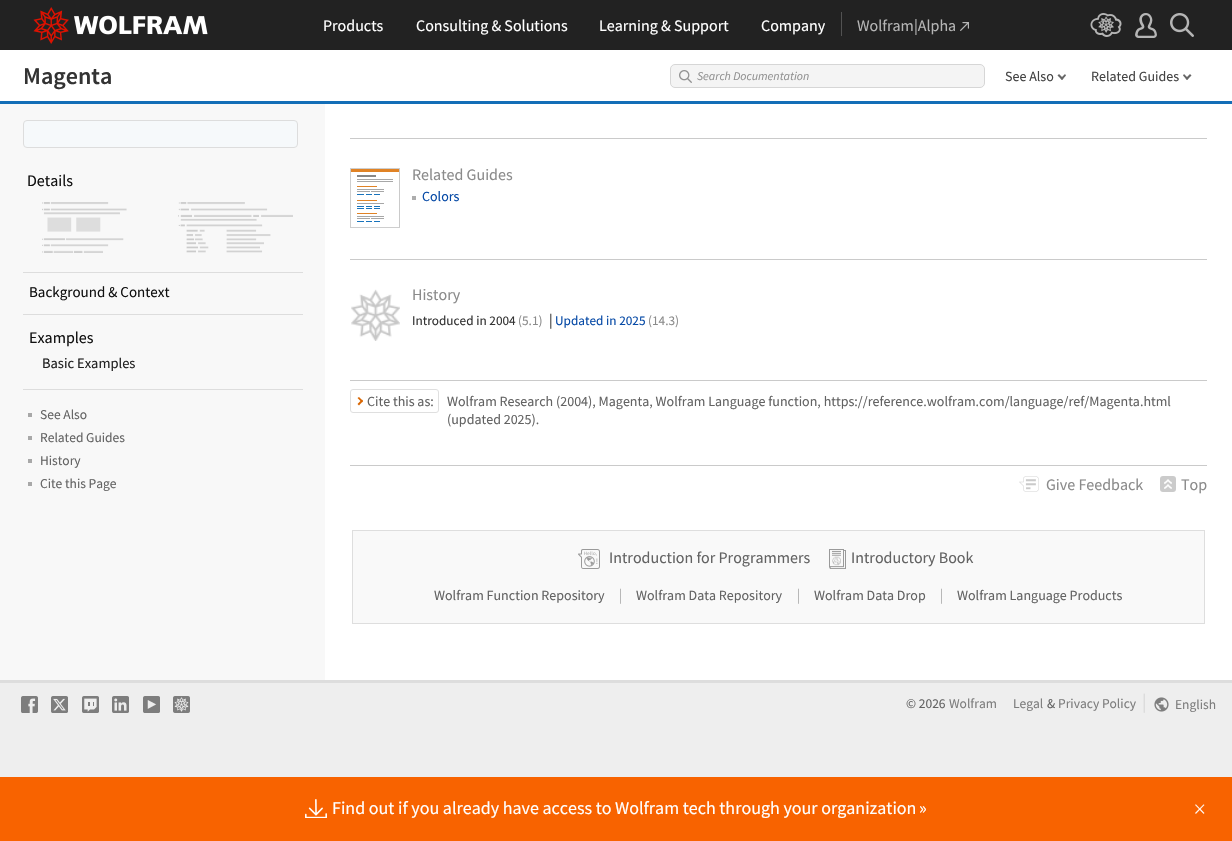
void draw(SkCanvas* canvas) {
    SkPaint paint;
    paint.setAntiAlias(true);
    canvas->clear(0xFFFFFFFF);
    paint.setColor(0xFF222222);
    canvas->drawRect(SkRect::MakeXYWH(0, 0, 1232, 50), paint);
    canvas->drawImageRect(SkImages::DeferredFromEncodedData(SkData::MakeFromFileName("img1.png")), SkRect::MakeXYWH(33, 7, 175, 37), SkSamplingOptions());
    SkFont font1(fontMgr->matchFamilyStyle("Source Sans Pro", SkFontStyle::Normal()), 16);
    font1.setSubpixel(true);
    paint.setColor(0xFFFFFFFF);
    canvas->drawString("Products", 323, 31, font1, paint);
    canvas->drawString("Consulting & Solutions", 416, 31, font1, paint);
    canvas->drawString("Learning & Support", 599, 31, font1, paint);
    canvas->drawString("Company", 761, 31, font1, paint);
    paint.setColor(0xFF525252);
    canvas->drawRect(SkRect::MakeXYWH(841, 12, 1, 24), paint);
    paint.setColor(0xFFB5B5B5);
    canvas->drawString("Wolfram|Alpha", 857, 31, font1, paint);
    canvas->drawImageRect(SkImages::DeferredFromEncodedData(SkData::MakeFromFileName("img2.png")), SkRect::MakeXYWH(960, 22, 9, 9), SkSamplingOptions());
    canvas->drawImageRect(SkImages::DeferredFromEncodedData(SkData::MakeFromFileName("img3.png")), SkRect::MakeXYWH(1090, 13, 32, 24), SkSamplingOptions());
    canvas->drawImageRect(SkImages::DeferredFromEncodedData(SkData::MakeFromFileName("img4.png")), SkRect::MakeXYWH(1135, 13, 22, 25), SkSamplingOptions());
    canvas->drawImageRect(SkImages::DeferredFromEncodedData(SkData::MakeFromFileName("img5.png")), SkRect::MakeXYWH(1170, 13, 24, 24), SkSamplingOptions());
    paint.setColor(0xFF136EB7);
    canvas->drawRect(SkRect::MakeXYWH(0, 101, 1232, 3), paint);
    SkFont font2(fontMgr->matchFamilyStyle("Source Sans Pro", SkFontStyle(600, SkFontStyle::kNormal_Width, SkFontStyle::kUpright_Slant)), 24);
    font2.setSubpixel(true);
    paint.setColor(0xFF333333);
    canvas->drawString("Magenta", 23, 84, font2, paint);
    paint.setColor(0xFFF4F4F4);
    canvas->drawRoundRect(SkRect::MakeXYWH(670.5f, 64.5f, 314, 23), 4.5f, 4.5f, paint);
    paint.setStyle(SkPaint::kStroke_Style);
    paint.setStrokeWidth(1);
    paint.setColor(0xFFD6D6D6);
    canvas->drawRoundRect(SkRect::MakeXYWH(670.5f, 64.5f, 314, 23), 4.5f, 4.5f, paint);
    canvas->drawImageRect(SkImages::DeferredFromEncodedData(SkData::MakeFromFileName("img6.png")), SkRect::MakeXYWH(679, 70, 13, 13), SkSamplingOptions());
    SkFont font3(fontMgr->matchFamilyStyle("Source Sans Pro", SkFontStyle::Italic()), 12);
    font3.setSubpixel(true);
    paint.setStyle(SkPaint::kFill_Style);
    paint.setColor(0xFF919191);
    canvas->drawString("Search Documentation", 697, 80, font3, paint);
    SkFont font4(fontMgr->matchFamilyStyle("Source Sans Pro", SkFontStyle::Normal()), 14);
    font4.setSubpixel(true);
    paint.setColor(0xFF444444);
    canvas->drawString("See Also", 1005, 81, font4, paint);
    paint.setColor(0xFF666666);
    canvas->drawPath(SkPathBuilder().moveTo(1060.5f, 78.5f).lineTo(1065, 74).lineTo(1066, 75.5f).lineTo(1062, 80).close().detach(), paint);
    canvas->drawPath(SkPathBuilder().moveTo(1057.5f, 75.5f).lineTo(1059, 74).lineTo(1063.5f, 78.5f).lineTo(1062, 80).close().detach(), paint);
    paint.setColor(0xFF444444);
    canvas->drawString("Related Guides", 1091, 81, font4, paint);
    paint.setColor(0xFF666666);
    canvas->drawPath(SkPathBuilder().moveTo(1185.5f, 78.5f).lineTo(1190, 74).lineTo(1191.5f, 75.5f).lineTo(1187, 80).close().detach(), paint);
    canvas->drawPath(SkPathBuilder().moveTo(1183, 75.5f).lineTo(1184, 74).lineTo(1188.5f, 78.5f).lineTo(1187, 80).close().detach(), paint);
    paint.setColor(0xFFF8F8F8);
    canvas->drawRect(SkRect::MakeXYWH(0, 104, 325, 576), paint);
    paint.setColor(0xFFF6F9FB);
    canvas->drawRoundRect(SkRect::MakeXYWH(23.5f, 120.5f, 274, 27), 3.5f, 3.5f, paint);
    paint.setStyle(SkPaint::kStroke_Style);
    paint.setColor(0xFFDDDDDD);
    canvas->drawRoundRect(SkRect::MakeXYWH(23.5f, 120.5f, 274, 27), 3.5f, 3.5f, paint);
    paint.setStyle(SkPaint::kFill_Style);
    canvas->drawRect(SkRect::MakeXYWH(23, 272, 280, 1), paint);
    paint.setColor(0xFF111111);
    canvas->drawString("Details", 27, 186, font1, paint);
    canvas->drawImageRect(SkImages::DeferredFromEncodedData(SkData::MakeFromFileName("img7.png")), SkRect::MakeXYWH(42, 202, 251, 51), SkSamplingOptions());
    paint.setColor(0xFFDDDDDD);
    canvas->drawRect(SkRect::MakeXYWH(23, 314, 280, 1), paint);
    SkFont font5(fontMgr->matchFamilyStyle("Source Sans Pro", SkFontStyle::Normal()), 15);
    font5.setSubpixel(true);
    paint.setColor(0xFF111111);
    canvas->drawString("Background & Context", 29, 297, font5, paint);
    paint.setColor(0xFFDDDDDD);
    canvas->drawRect(SkRect::MakeXYWH(23, 389, 280, 1), paint);
    paint.setColor(0xFF111111);
    canvas->drawString("Examples", 29, 343, font1, paint);
    SkFont font6(fontMgr->matchFamilyStyle("Source Sans Pro", SkFontStyle::Normal()), 14.5f);
    font6.setSubpixel(true);
    paint.setColor(0xFF222222);
    canvas->drawString("Basic Examples", 42, 368, font6, paint);
    paint.setColor(0xFFA8A8A8);
    canvas->drawRect(SkRect::MakeXYWH(28, 413, 4, 4), paint);
    SkFont font7(fontMgr->matchFamilyStyle("Source Sans Pro", SkFontStyle::Normal()), 13.5f);
    font7.setSubpixel(true);
    paint.setColor(0xFF636363);
    canvas->drawString("See Also", 40, 419, font7, paint);
    paint.setColor(0xFFA8A8A8);
    canvas->drawRect(SkRect::MakeXYWH(28, 436, 4, 4), paint);
    paint.setColor(0xFF636363);
    canvas->drawString("Related Guides", 40, 442, font7, paint);
    paint.setColor(0xFFA8A8A8);
    canvas->drawRect(SkRect::MakeXYWH(28, 459, 4, 4), paint);
    paint.setColor(0xFF636363);
    canvas->drawString("History", 40, 465, font7, paint);
    paint.setColor(0xFFA8A8A8);
    canvas->drawRect(SkRect::MakeXYWH(28, 482, 4, 4), paint);
    paint.setColor(0xFF636363);
    canvas->drawString("Cite this Page", 40, 488, font7, paint);
    canvas->drawImageRect(SkImages::DeferredFromEncodedData(SkData::MakeFromFileName("img8.png")), SkRect::MakeXYWH(350, 168, 50, 60), SkSamplingOptions());
    paint.setColor(0xFFCACACA);
    canvas->drawRect(SkRect::MakeXYWH(350, 138, 857, 1), paint);
    paint.setColor(0xFF8B8B8B);
    canvas->drawString("Related Guides", 412, 180, font1, paint);
    paint.setColor(0xFFADADAD);
    canvas->drawRect(SkRect::MakeXYWH(412, 196, 4, 4), paint);
    paint.setColor(0xFF0549A6);
    canvas->drawString("Colors", 422, 201, font4, paint);
    canvas->drawImageRect(SkImages::DeferredFromEncodedData(SkData::MakeFromFileName("img9.png")), SkRect::MakeXYWH(351, 289, 49, 52), SkSamplingOptions());
    paint.setColor(0xFFCACACA);
    canvas->drawRect(SkRect::MakeXYWH(350, 259, 857, 1), paint);
    paint.setColor(0xFF8B8B8B);
    canvas->drawString("History", 412, 300, font1, paint);
    SkFont font8(fontMgr->matchFamilyStyle("Source Sans Pro", SkFontStyle::Normal()), 13.25f);
    font8.setSubpixel(true);
    paint.setColor(0xFF333333);
    canvas->drawString("Introduced in 2004", 412, 325, font8, paint);
    paint.setColor(0xFF8B8B8B);
    canvas->drawString("(5.1)", 518, 325, font8, paint);
    paint.setColor(0xFF333333);
    canvas->drawString("|", 549, 325, font5, paint);
    paint.setColor(0xFF0549A6);
    canvas->drawString("Updated in 2025", 555, 325, font8, paint);
    paint.setColor(0xFF8B8B8B);
    canvas->drawString("(14.3)", 648, 325, font8, paint);
    paint.setColor(0xFFCACACA);
    canvas->drawRect(SkRect::MakeXYWH(350, 380, 857, 1), paint);
    paint.setStyle(SkPaint::kStroke_Style);
    paint.setColor(0xFFDFDFDF);
    canvas->drawRoundRect(SkRect::MakeXYWH(350.5f, 389.5f, 88, 23), 2.5f, 2.5f, paint);
    paint.setStyle(SkPaint::kFill_Style);
    paint.setColor(0xFFD96500);
    canvas->drawPath(SkPathBuilder().moveTo(357.5f, 398).lineTo(359, 397).lineTo(363, 401).lineTo(362, 402.5f).close().detach(), paint);
    canvas->drawPath(SkPathBuilder().moveTo(357.5f, 404).lineTo(362, 399.5f).lineTo(363, 401).lineTo(359, 405.5f).close().detach(), paint);
    paint.setColor(0xFF636363);
    canvas->drawString("Cite this as:", 367, 406, font4, paint);
    canvas->drawString("Wolfram Research (2004), Magenta, Wolfram Language function, https://reference.wolfram.com/language/ref/Magenta.html", 447, 406, font4, paint);
    canvas->drawString("(updated 2025).", 447, 424, font4, paint);
    paint.setColor(0xFFCACACA);
    canvas->drawRect(SkRect::MakeXYWH(350, 465, 857, 1), paint);
    canvas->drawImageRect(SkImages::DeferredFromEncodedData(SkData::MakeFromFileName("img10.png")), SkRect::MakeXYWH(1019, 476, 20, 16), SkSamplingOptions());
    paint.setColor(0xFF8B8B8B);
    canvas->drawString("Give Feedback", 1046, 490, font1, paint);
    paint.setColor(0xFFCBCBCB);
    canvas->drawRoundRect(SkRect::MakeXYWH(1160, 476, 16, 16), 3, 3, paint);
    canvas->drawImageRect(SkImages::DeferredFromEncodedData(SkData::MakeFromFileName("img11.png")), SkRect::MakeXYWH(1164, 479, 8, 10), SkSamplingOptions());
    paint.setColor(0xFF8B8B8B);
    canvas->drawString("Top", 1181, 490, font1, paint);
    paint.setColor(0xFFF9F9F9);
    canvas->drawRect(SkRect::MakeXYWH(352.5f, 530.5f, 852, 93), paint);
    paint.setStyle(SkPaint::kStroke_Style);
    paint.setColor(0xFFDEDEDE);
    canvas->drawRect(SkRect::MakeXYWH(352.5f, 530.5f, 852, 93), paint);
    canvas->drawImageRect(SkImages::DeferredFromEncodedData(SkData::MakeFromFileName("img12.png")), SkRect::MakeXYWH(578, 549, 22, 20), SkSamplingOptions());
    paint.setStyle(SkPaint::kFill_Style);
    paint.setColor(0xFF636363);
    canvas->drawString("Introduction for Programmers", 609, 563, font1, paint);
    canvas->drawImageRect(SkImages::DeferredFromEncodedData(SkData::MakeFromFileName("img13.png")), SkRect::MakeXYWH(829, 549, 17, 20), SkSamplingOptions());
    canvas->drawString("Introductory Book", 851, 563, font1, paint);
    canvas->drawString("Wolfram Function Repository", 434, 600, font4, paint);
    SkFont font9(fontMgr->matchFamilyStyle("Source Sans Pro", SkFontStyle(300, SkFontStyle::kNormal_Width, SkFontStyle::kUpright_Slant)), 15);
    font9.setSubpixel(true);
    paint.setColor(0xFF919191);
    canvas->drawString("|", 619, 600, font9, paint);
    paint.setColor(0xFF636363);
    canvas->drawString("Wolfram Data Repository", 636, 600, font4, paint);
    paint.setColor(0xFF919191);
    canvas->drawString("|", 797, 600, font9, paint);
    paint.setColor(0xFF636363);
    canvas->drawString("Wolfram Data Drop", 814, 600, font4, paint);
    paint.setColor(0xFF919191);
    canvas->drawString("|", 940, 600, font9, paint);
    paint.setColor(0xFF636363);
    canvas->drawString("Wolfram Language Products", 957, 600, font4, paint);
    paint.setColor(0xFFEEEEEE);
    canvas->drawRect(SkRect::MakeXYWH(0, 683, 1232, 94), paint);
    paint.setColor(0xFFDDDDDD);
    canvas->drawRect(SkRect::MakeXYWH(0, 680, 1232, 3), paint);
    canvas->drawImageRect(SkImages::DeferredFromEncodedData(SkData::MakeFromFileName("img14.png")), SkRect::MakeXYWH(21, 696, 17, 17), SkSamplingOptions());
    canvas->drawImageRect(SkImages::DeferredFromEncodedData(SkData::MakeFromFileName("img15.png")), SkRect::MakeXYWH(51, 696, 17, 17), SkSamplingOptions());
    canvas->drawImageRect(SkImages::DeferredFromEncodedData(SkData::MakeFromFileName("img16.png")), SkRect::MakeXYWH(82, 696, 17, 17), SkSamplingOptions());
    canvas->drawImageRect(SkImages::DeferredFromEncodedData(SkData::MakeFromFileName("img17.png")), SkRect::MakeXYWH(112, 696, 17, 17), SkSamplingOptions());
    canvas->drawImageRect(SkImages::DeferredFromEncodedData(SkData::MakeFromFileName("img18.png")), SkRect::MakeXYWH(143, 696, 17, 17), SkSamplingOptions());
    canvas->drawImageRect(SkImages::DeferredFromEncodedData(SkData::MakeFromFileName("img19.png")), SkRect::MakeXYWH(173, 696, 17, 17), SkSamplingOptions());
    paint.setColor(0xFF636363);
    canvas->drawString("© 2026", 906, 708, font7, paint);
    paint.setColor(0xFF7D7D7D);
    canvas->drawString("Wolfram", 949, 708, font7, paint);
    canvas->drawString("Legal", 1013, 708, font7, paint);
    paint.setColor(0xFF636363);
    canvas->drawString("&", 1047, 708, font7, paint);
    paint.setColor(0xFF7D7D7D);
    canvas->drawString("Privacy Policy", 1058, 708, font7, paint);
    SkFont font10(fontMgr->matchFamilyStyle("Source Sans Pro", SkFontStyle::Normal()), 19);
    font10.setSubpixel(true);
    paint.setColor(0xFFDADADA);
    canvas->drawString("|", 1142, 708, font10, paint);
    canvas->drawImageRect(SkImages::DeferredFromEncodedData(SkData::MakeFromFileName("img20.png")), SkRect::MakeXYWH(1154, 697, 15, 15), SkSamplingOptions());
    paint.setColor(0xFF7D7D7D);
    canvas->drawString("English", 1175, 709, font7, paint);
    paint.setColor(0xFFF86300);
    canvas->drawRect(SkRect::MakeXYWH(0, 777, 1232, 64), paint);
    canvas->drawImageRect(SkImages::DeferredFromEncodedData(SkData::MakeFromFileName("img21.png")), SkRect::MakeXYWH(305, 799, 22, 19), SkSamplingOptions());
    SkFont font11(fontMgr->matchFamilyStyle("Source Sans Pro", SkFontStyle::Normal()), 18);
    font11.setSubpixel(true);
    paint.setColor(0xFFFFFFFF);
    canvas->drawString("Find out if you already have access to Wolfram tech through your organization", 332, 814, font11, paint);
    canvas->drawString("»", 919, 814, font11, paint);
    SkFont font12(fontMgr->matchFamilyStyle("Source Sans Pro", SkFontStyle(300, SkFontStyle::kNormal_Width, SkFontStyle::kUpright_Slant)), 24);
    font12.setSubpixel(true);
    canvas->drawString("×", 1194, 817, font12, paint);
}
